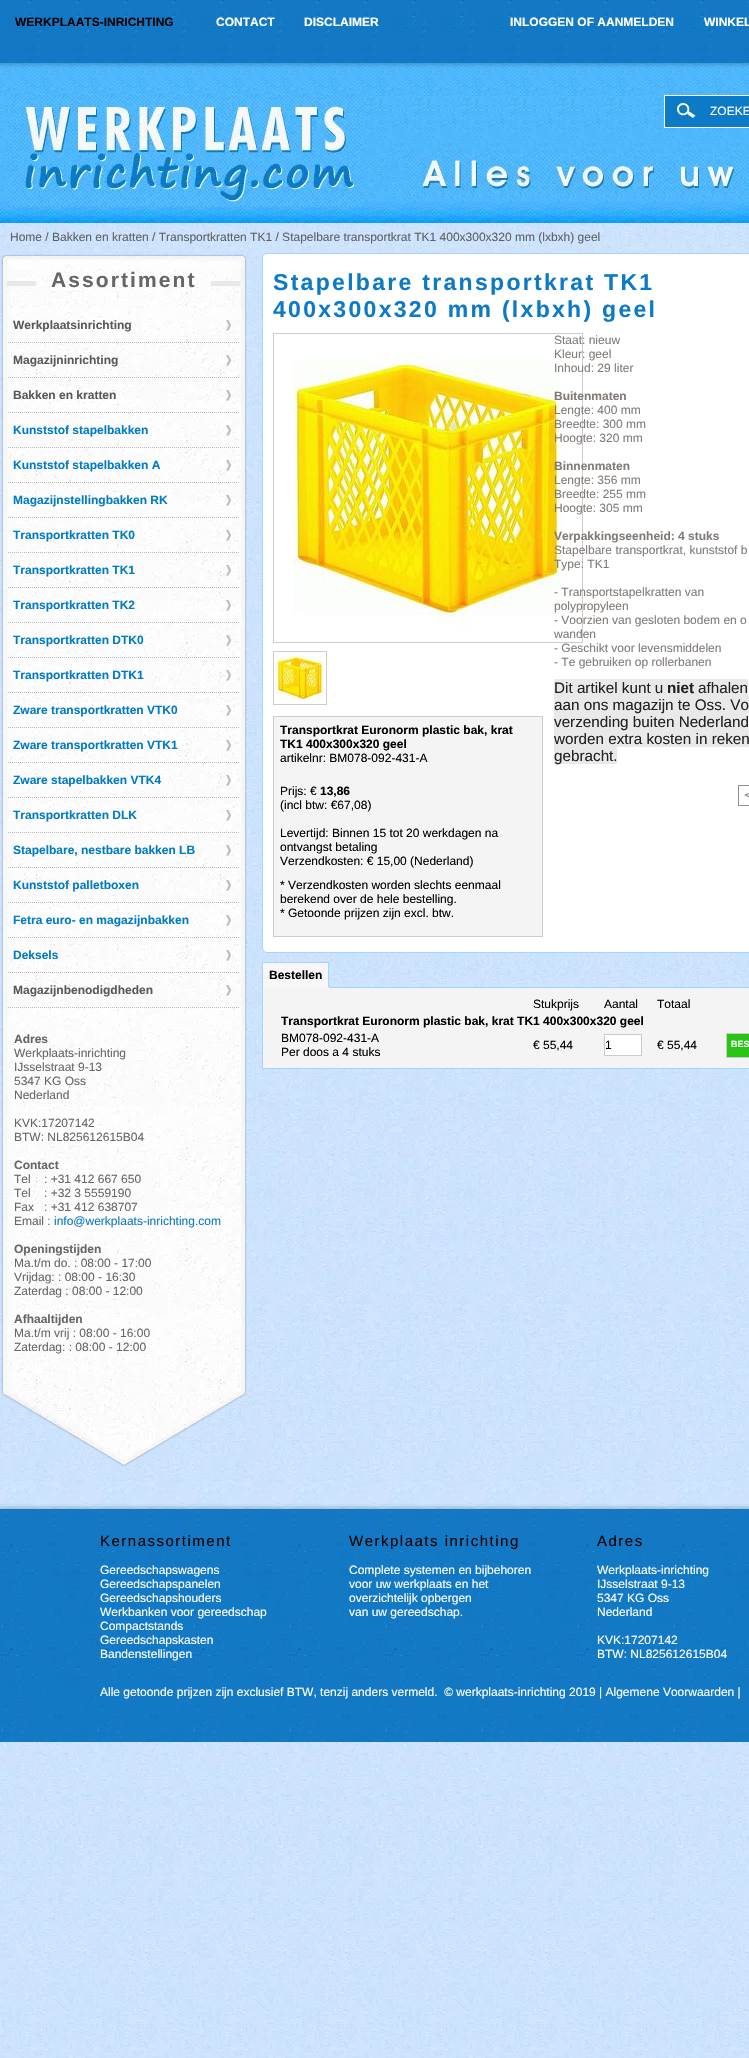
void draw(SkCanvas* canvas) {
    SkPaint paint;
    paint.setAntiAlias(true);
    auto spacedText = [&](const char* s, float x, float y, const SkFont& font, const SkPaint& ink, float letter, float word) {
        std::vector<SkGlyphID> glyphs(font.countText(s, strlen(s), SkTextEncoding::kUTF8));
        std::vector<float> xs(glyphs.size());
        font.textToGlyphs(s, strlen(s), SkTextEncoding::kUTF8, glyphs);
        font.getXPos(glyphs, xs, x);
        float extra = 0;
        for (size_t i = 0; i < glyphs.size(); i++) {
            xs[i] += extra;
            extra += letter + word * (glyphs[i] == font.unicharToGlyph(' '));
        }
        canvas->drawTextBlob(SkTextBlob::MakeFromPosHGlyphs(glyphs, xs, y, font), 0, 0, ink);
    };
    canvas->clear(0xFFFFFFFF);
    canvas->drawImageRect(SkImages::DeferredFromEncodedData(SkData::MakeFromFileName("img1.png")), SkRect::MakeXYWH(0, 223, 749, 1835), SkSamplingOptions());
    canvas->drawImageRect(SkImages::DeferredFromEncodedData(SkData::MakeFromFileName("img2.png")), SkRect::MakeXYWH(0, 0, 749, 223), SkSamplingOptions());
    SkFont font1(fontMgr->matchFamilyStyle("Liberation Sans", SkFontStyle::Bold()), 12);
    font1.setSubpixel(true);
    paint.setColor(0xFF000000);
    canvas->drawString("WERKPLAATS-INRICHTING", 15, 26, font1, paint);
    paint.setColor(0xFFFFFFFF);
    canvas->drawString("CONTACT", 216, 26, font1, paint);
    canvas->drawString("DISCLAIMER", 304, 26, font1, paint);
    canvas->drawString("INLOGGEN OF AANMELDEN", 510, 26, font1, paint);
    canvas->drawString("WINKEL", 704, 26, font1, paint);
    canvas->drawImageRect(SkImages::DeferredFromEncodedData(SkData::MakeFromFileName("img3.png")), SkRect::MakeXYWH(10, 95, 352, 112), SkSamplingOptions());
    paint.setColor(0xFF0C7AC6);
    canvas->drawRect(SkRect::MakeXYWH(665, 96, 84, 31), paint);
    canvas->drawImageRect(SkImages::DeferredFromEncodedData(SkData::MakeFromFileName("img4.png")), SkRect::MakeXYWH(675, 99, 24, 22), SkSamplingOptions());
    paint.setStyle(SkPaint::kStroke_Style);
    paint.setStrokeWidth(1);
    paint.setColor(0xFFFFFFFF);
    canvas->drawRect(SkRect::MakeXYWH(664.5f, 95.5f, 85, 32), paint);
    SkFont font2(fontMgr->matchFamilyStyle("Liberation Sans", SkFontStyle::Normal()), 12);
    font2.setSubpixel(true);
    paint.setStyle(SkPaint::kFill_Style);
    canvas->drawString("ZOEKE", 710, 115, font2, paint);
    canvas->drawImageRect(SkImages::DeferredFromEncodedData(SkData::MakeFromFileName("img5.png")), SkRect::MakeXYWH(408, 154, 341, 43), SkSamplingOptions());
    paint.setColor(0xFF606060);
    canvas->drawString("Home / Bakken en kratten / Transportkratten TK1 / Stapelbare transportkrat TK1 400x300x320 mm (lxbxh) geel", 10, 241, font2, paint);
    canvas->drawImageRect(SkImages::DeferredFromEncodedData(SkData::MakeFromFileName("img6.png")), SkRect::MakeXYWH(1, 254, 246, 54), SkSamplingOptions());
    SkFont font3(fontMgr->matchFamilyStyle("Liberation Sans", SkFontStyle::Bold()), 21);
    font3.setSubpixel(true);
    paint.setColor(0xFF666666);
    spacedText("Assortiment", 51, 287, font3, paint, 2.1f, 0);
    canvas->drawImageRect(SkImages::DeferredFromEncodedData(SkData::MakeFromFileName("img7.png")), SkRect::MakeXYWH(1, 308, 246, 1084), SkSamplingOptions());
    canvas->drawImageRect(SkImages::DeferredFromEncodedData(SkData::MakeFromFileName("img8.png")), SkRect::MakeXYWH(226, 320, 5, 11), SkSamplingOptions());
    paint.setStyle(SkPaint::kStroke_Style);
    paint.setColor(0xFFBBBBBB);
    paint.setPathEffect(SkDashPathEffect::Make({{1, 1}}, 0));
    canvas->drawPath(SkPathBuilder().moveTo(8, 342.5f).lineTo(240, 342.5f).detach(), paint);
    paint.setPathEffect(nullptr);
    paint.setStyle(SkPaint::kFill_Style);
    paint.setColor(0xFF595959);
    canvas->drawString("Werkplaatsinrichting", 13, 329, font1, paint);
    canvas->drawImageRect(SkImages::DeferredFromEncodedData(SkData::MakeFromFileName("img9.png")), SkRect::MakeXYWH(226, 355, 5, 11), SkSamplingOptions());
    paint.setStyle(SkPaint::kStroke_Style);
    paint.setColor(0xFFBBBBBB);
    paint.setPathEffect(SkDashPathEffect::Make({{1, 1}}, 0));
    canvas->drawPath(SkPathBuilder().moveTo(8, 377.5f).lineTo(240, 377.5f).detach(), paint);
    paint.setPathEffect(nullptr);
    paint.setStyle(SkPaint::kFill_Style);
    paint.setColor(0xFF595959);
    canvas->drawString("Magazijninrichting", 13, 364, font1, paint);
    canvas->drawImageRect(SkImages::DeferredFromEncodedData(SkData::MakeFromFileName("img10.png")), SkRect::MakeXYWH(226, 390, 5, 11), SkSamplingOptions());
    paint.setStyle(SkPaint::kStroke_Style);
    paint.setColor(0xFFBBBBBB);
    paint.setPathEffect(SkDashPathEffect::Make({{1, 1}}, 0));
    canvas->drawPath(SkPathBuilder().moveTo(8, 412.5f).lineTo(240, 412.5f).detach(), paint);
    paint.setPathEffect(nullptr);
    paint.setStyle(SkPaint::kFill_Style);
    paint.setColor(0xFF595959);
    canvas->drawString("Bakken en kratten", 13, 399, font1, paint);
    canvas->drawImageRect(SkImages::DeferredFromEncodedData(SkData::MakeFromFileName("img11.png")), SkRect::MakeXYWH(226, 425, 5, 11), SkSamplingOptions());
    paint.setStyle(SkPaint::kStroke_Style);
    paint.setColor(0xFFBBBBBB);
    paint.setPathEffect(SkDashPathEffect::Make({{1, 1}}, 0));
    canvas->drawPath(SkPathBuilder().moveTo(8, 447.5f).lineTo(240, 447.5f).detach(), paint);
    paint.setPathEffect(nullptr);
    paint.setStyle(SkPaint::kFill_Style);
    paint.setColor(0xFF007BC4);
    canvas->drawString("Kunststof stapelbakken", 13, 434, font1, paint);
    canvas->drawImageRect(SkImages::DeferredFromEncodedData(SkData::MakeFromFileName("img12.png")), SkRect::MakeXYWH(226, 460, 5, 11), SkSamplingOptions());
    paint.setStyle(SkPaint::kStroke_Style);
    paint.setColor(0xFFBBBBBB);
    paint.setPathEffect(SkDashPathEffect::Make({{1, 1}}, 0));
    canvas->drawPath(SkPathBuilder().moveTo(8, 482.5f).lineTo(240, 482.5f).detach(), paint);
    paint.setPathEffect(nullptr);
    paint.setStyle(SkPaint::kFill_Style);
    paint.setColor(0xFF007BC4);
    canvas->drawString("Kunststof stapelbakken A", 13, 469, font1, paint);
    canvas->drawImageRect(SkImages::DeferredFromEncodedData(SkData::MakeFromFileName("img13.png")), SkRect::MakeXYWH(226, 495, 5, 11), SkSamplingOptions());
    paint.setStyle(SkPaint::kStroke_Style);
    paint.setColor(0xFFBBBBBB);
    paint.setPathEffect(SkDashPathEffect::Make({{1, 1}}, 0));
    canvas->drawPath(SkPathBuilder().moveTo(8, 517.5f).lineTo(240, 517.5f).detach(), paint);
    paint.setPathEffect(nullptr);
    paint.setStyle(SkPaint::kFill_Style);
    paint.setColor(0xFF007BC4);
    canvas->drawString("Magazijnstellingbakken RK", 13, 504, font1, paint);
    canvas->drawImageRect(SkImages::DeferredFromEncodedData(SkData::MakeFromFileName("img14.png")), SkRect::MakeXYWH(226, 530, 5, 11), SkSamplingOptions());
    paint.setStyle(SkPaint::kStroke_Style);
    paint.setColor(0xFFBBBBBB);
    paint.setPathEffect(SkDashPathEffect::Make({{1, 1}}, 0));
    canvas->drawPath(SkPathBuilder().moveTo(8, 552.5f).lineTo(240, 552.5f).detach(), paint);
    paint.setPathEffect(nullptr);
    paint.setStyle(SkPaint::kFill_Style);
    paint.setColor(0xFF007BC4);
    canvas->drawString("Transportkratten TK0", 13, 539, font1, paint);
    canvas->drawImageRect(SkImages::DeferredFromEncodedData(SkData::MakeFromFileName("img15.png")), SkRect::MakeXYWH(226, 565, 5, 11), SkSamplingOptions());
    paint.setStyle(SkPaint::kStroke_Style);
    paint.setColor(0xFFBBBBBB);
    paint.setPathEffect(SkDashPathEffect::Make({{1, 1}}, 0));
    canvas->drawPath(SkPathBuilder().moveTo(8, 587.5f).lineTo(240, 587.5f).detach(), paint);
    paint.setPathEffect(nullptr);
    paint.setStyle(SkPaint::kFill_Style);
    paint.setColor(0xFF007BC4);
    canvas->drawString("Transportkratten TK1", 13, 574, font1, paint);
    canvas->drawImageRect(SkImages::DeferredFromEncodedData(SkData::MakeFromFileName("img16.png")), SkRect::MakeXYWH(226, 600, 5, 11), SkSamplingOptions());
    paint.setStyle(SkPaint::kStroke_Style);
    paint.setColor(0xFFBBBBBB);
    paint.setPathEffect(SkDashPathEffect::Make({{1, 1}}, 0));
    canvas->drawPath(SkPathBuilder().moveTo(8, 622.5f).lineTo(240, 622.5f).detach(), paint);
    paint.setPathEffect(nullptr);
    paint.setStyle(SkPaint::kFill_Style);
    paint.setColor(0xFF007BC4);
    canvas->drawString("Transportkratten TK2", 13, 609, font1, paint);
    canvas->drawImageRect(SkImages::DeferredFromEncodedData(SkData::MakeFromFileName("img17.png")), SkRect::MakeXYWH(226, 635, 5, 11), SkSamplingOptions());
    paint.setStyle(SkPaint::kStroke_Style);
    paint.setColor(0xFFBBBBBB);
    paint.setPathEffect(SkDashPathEffect::Make({{1, 1}}, 0));
    canvas->drawPath(SkPathBuilder().moveTo(8, 657.5f).lineTo(240, 657.5f).detach(), paint);
    paint.setPathEffect(nullptr);
    paint.setStyle(SkPaint::kFill_Style);
    paint.setColor(0xFF007BC4);
    canvas->drawString("Transportkratten DTK0", 13, 644, font1, paint);
    canvas->drawImageRect(SkImages::DeferredFromEncodedData(SkData::MakeFromFileName("img18.png")), SkRect::MakeXYWH(226, 670, 5, 11), SkSamplingOptions());
    paint.setStyle(SkPaint::kStroke_Style);
    paint.setColor(0xFFBBBBBB);
    paint.setPathEffect(SkDashPathEffect::Make({{1, 1}}, 0));
    canvas->drawPath(SkPathBuilder().moveTo(8, 692.5f).lineTo(240, 692.5f).detach(), paint);
    paint.setPathEffect(nullptr);
    paint.setStyle(SkPaint::kFill_Style);
    paint.setColor(0xFF007BC4);
    canvas->drawString("Transportkratten DTK1", 13, 679, font1, paint);
    canvas->drawImageRect(SkImages::DeferredFromEncodedData(SkData::MakeFromFileName("img19.png")), SkRect::MakeXYWH(226, 705, 5, 11), SkSamplingOptions());
    paint.setStyle(SkPaint::kStroke_Style);
    paint.setColor(0xFFBBBBBB);
    paint.setPathEffect(SkDashPathEffect::Make({{1, 1}}, 0));
    canvas->drawPath(SkPathBuilder().moveTo(8, 727.5f).lineTo(240, 727.5f).detach(), paint);
    paint.setPathEffect(nullptr);
    paint.setStyle(SkPaint::kFill_Style);
    paint.setColor(0xFF007BC4);
    canvas->drawString("Zware transportkratten VTK0", 13, 714, font1, paint);
    canvas->drawImageRect(SkImages::DeferredFromEncodedData(SkData::MakeFromFileName("img20.png")), SkRect::MakeXYWH(226, 740, 5, 11), SkSamplingOptions());
    paint.setStyle(SkPaint::kStroke_Style);
    paint.setColor(0xFFBBBBBB);
    paint.setPathEffect(SkDashPathEffect::Make({{1, 1}}, 0));
    canvas->drawPath(SkPathBuilder().moveTo(8, 762.5f).lineTo(240, 762.5f).detach(), paint);
    paint.setPathEffect(nullptr);
    paint.setStyle(SkPaint::kFill_Style);
    paint.setColor(0xFF007BC4);
    canvas->drawString("Zware transportkratten VTK1", 13, 749, font1, paint);
    canvas->drawImageRect(SkImages::DeferredFromEncodedData(SkData::MakeFromFileName("img21.png")), SkRect::MakeXYWH(226, 775, 5, 11), SkSamplingOptions());
    paint.setStyle(SkPaint::kStroke_Style);
    paint.setColor(0xFFBBBBBB);
    paint.setPathEffect(SkDashPathEffect::Make({{1, 1}}, 0));
    canvas->drawPath(SkPathBuilder().moveTo(8, 797.5f).lineTo(240, 797.5f).detach(), paint);
    paint.setPathEffect(nullptr);
    paint.setStyle(SkPaint::kFill_Style);
    paint.setColor(0xFF007BC4);
    canvas->drawString("Zware stapelbakken VTK4", 13, 784, font1, paint);
    canvas->drawImageRect(SkImages::DeferredFromEncodedData(SkData::MakeFromFileName("img22.png")), SkRect::MakeXYWH(226, 810, 5, 11), SkSamplingOptions());
    paint.setStyle(SkPaint::kStroke_Style);
    paint.setColor(0xFFBBBBBB);
    paint.setPathEffect(SkDashPathEffect::Make({{1, 1}}, 0));
    canvas->drawPath(SkPathBuilder().moveTo(8, 832.5f).lineTo(240, 832.5f).detach(), paint);
    paint.setPathEffect(nullptr);
    paint.setStyle(SkPaint::kFill_Style);
    paint.setColor(0xFF007BC4);
    canvas->drawString("Transportkratten DLK", 13, 819, font1, paint);
    canvas->drawImageRect(SkImages::DeferredFromEncodedData(SkData::MakeFromFileName("img23.png")), SkRect::MakeXYWH(226, 845, 5, 11), SkSamplingOptions());
    paint.setStyle(SkPaint::kStroke_Style);
    paint.setColor(0xFFBBBBBB);
    paint.setPathEffect(SkDashPathEffect::Make({{1, 1}}, 0));
    canvas->drawPath(SkPathBuilder().moveTo(8, 867.5f).lineTo(240, 867.5f).detach(), paint);
    paint.setPathEffect(nullptr);
    paint.setStyle(SkPaint::kFill_Style);
    paint.setColor(0xFF007BC4);
    canvas->drawString("Stapelbare, nestbare bakken LB", 13, 854, font1, paint);
    canvas->drawImageRect(SkImages::DeferredFromEncodedData(SkData::MakeFromFileName("img24.png")), SkRect::MakeXYWH(226, 880, 5, 11), SkSamplingOptions());
    paint.setStyle(SkPaint::kStroke_Style);
    paint.setColor(0xFFBBBBBB);
    paint.setPathEffect(SkDashPathEffect::Make({{1, 1}}, 0));
    canvas->drawPath(SkPathBuilder().moveTo(8, 902.5f).lineTo(240, 902.5f).detach(), paint);
    paint.setPathEffect(nullptr);
    paint.setStyle(SkPaint::kFill_Style);
    paint.setColor(0xFF007BC4);
    canvas->drawString("Kunststof palletboxen", 13, 889, font1, paint);
    canvas->drawImageRect(SkImages::DeferredFromEncodedData(SkData::MakeFromFileName("img25.png")), SkRect::MakeXYWH(226, 915, 5, 11), SkSamplingOptions());
    paint.setStyle(SkPaint::kStroke_Style);
    paint.setColor(0xFFBBBBBB);
    paint.setPathEffect(SkDashPathEffect::Make({{1, 1}}, 0));
    canvas->drawPath(SkPathBuilder().moveTo(8, 937.5f).lineTo(240, 937.5f).detach(), paint);
    paint.setPathEffect(nullptr);
    paint.setStyle(SkPaint::kFill_Style);
    paint.setColor(0xFF007BC4);
    canvas->drawString("Fetra euro- en magazijnbakken", 13, 924, font1, paint);
    canvas->drawImageRect(SkImages::DeferredFromEncodedData(SkData::MakeFromFileName("img26.png")), SkRect::MakeXYWH(226, 950, 5, 11), SkSamplingOptions());
    paint.setStyle(SkPaint::kStroke_Style);
    paint.setColor(0xFFBBBBBB);
    paint.setPathEffect(SkDashPathEffect::Make({{1, 1}}, 0));
    canvas->drawPath(SkPathBuilder().moveTo(8, 972.5f).lineTo(240, 972.5f).detach(), paint);
    paint.setPathEffect(nullptr);
    paint.setStyle(SkPaint::kFill_Style);
    paint.setColor(0xFF007BC4);
    canvas->drawString("Deksels", 13, 959, font1, paint);
    canvas->drawImageRect(SkImages::DeferredFromEncodedData(SkData::MakeFromFileName("img27.png")), SkRect::MakeXYWH(226, 985, 5, 11), SkSamplingOptions());
    paint.setStyle(SkPaint::kStroke_Style);
    paint.setColor(0xFFBBBBBB);
    paint.setPathEffect(SkDashPathEffect::Make({{1, 1}}, 0));
    canvas->drawPath(SkPathBuilder().moveTo(8, 1007.5f).lineTo(240, 1007.5f).detach(), paint);
    paint.setPathEffect(nullptr);
    paint.setStyle(SkPaint::kFill_Style);
    paint.setColor(0xFF595959);
    canvas->drawString("Magazijnbenodigdheden", 13, 994, font1, paint);
    paint.setColor(0xFF666666);
    canvas->drawString("Adres", 14, 1043, font1, paint);
    canvas->drawString("Werkplaats-inrichting", 14, 1057, font2, paint);
    canvas->drawString("IJsselstraat 9-13", 14, 1071, font2, paint);
    canvas->drawString("5347 KG Oss", 14, 1085, font2, paint);
    canvas->drawString("Nederland", 14, 1099, font2, paint);
    canvas->drawString("KVK:17207142", 14, 1127, font2, paint);
    canvas->drawString("BTW: NL825612615B04", 14, 1141, font2, paint);
    canvas->drawString("Contact", 14, 1169, font1, paint);
    canvas->drawString("Tel    : +31 412 667 650", 14, 1183, font2, paint);
    canvas->drawString("Tel    : +32 3 5559190", 14, 1197, font2, paint);
    canvas->drawString("Fax   : +31 412 638707", 14, 1211, font2, paint);
    canvas->drawString("Email :", 14, 1225, font2, paint);
    paint.setColor(0xFF0C7AC6);
    canvas->drawString("info@werkplaats-inrichting.com", 54, 1225, font2, paint);
    paint.setColor(0xFF666666);
    canvas->drawString("Openingstijden", 14, 1253, font1, paint);
    canvas->drawString("Ma.t/m do. : 08:00 - 17:00", 14, 1267, font2, paint);
    canvas->drawString("Vrijdag: : 08:00 - 16:30", 14, 1281, font2, paint);
    canvas->drawString("Zaterdag : 08:00 - 12:00", 14, 1295, font2, paint);
    canvas->drawString("Afhaaltijden", 14, 1323, font1, paint);
    canvas->drawString("Ma.t/m vrij : 08:00 - 16:00", 14, 1337, font2, paint);
    canvas->drawString("Zaterdag: : 08:00 - 12:00", 14, 1351, font2, paint);
    canvas->drawImageRect(SkImages::DeferredFromEncodedData(SkData::MakeFromFileName("img28.png")), SkRect::MakeXYWH(1, 1392, 246, 74), SkSamplingOptions());
    paint.setColor(0xFFFFFFFF);
    canvas->drawRoundRect(SkRect::MakeXYWH(262.5f, 253.5f, 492, 699), 4.5f, 4.5f, paint);
    paint.setStyle(SkPaint::kStroke_Style);
    paint.setColor(0xFFA5D5FF);
    canvas->drawRoundRect(SkRect::MakeXYWH(262.5f, 253.5f, 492, 699), 4.5f, 4.5f, paint);
    SkFont font4(fontMgr->matchFamilyStyle("Liberation Sans", SkFontStyle::Bold()), 23);
    font4.setSubpixel(true);
    paint.setStyle(SkPaint::kFill_Style);
    paint.setColor(0xFF0C7AC6);
    spacedText("Stapelbare transportkrat TK1", 273, 290, font4, paint, 2.3f, 0);
    spacedText("400x300x320 mm (lxbxh) geel", 273, 317, font4, paint, 2.3f, 0);
    paint.setStyle(SkPaint::kStroke_Style);
    paint.setColor(0xFFCCCCCC);
    canvas->drawRect(SkRect::MakeXYWH(273.5f, 333.5f, 309, 309), paint);
    paint.setStyle(SkPaint::kFill_Style);
    paint.setColor(0xFF817B77);
    canvas->drawString("Staat: nieuw", 554, 344, font2, paint);
    canvas->drawImageRect(SkImages::DeferredFromEncodedData(SkData::MakeFromFileName("img29.png")), SkRect::MakeXYWH(293, 354, 274, 272), SkSamplingOptions());
    canvas->drawString("Kleur: geel", 554, 358, font2, paint);
    canvas->drawString("Inhoud: 29 liter", 554, 372, font2, paint);
    canvas->drawString("Buitenmaten", 554, 400, font1, paint);
    canvas->drawString("Lengte: 400 mm", 554, 414, font2, paint);
    canvas->drawString("Breedte: 300 mm", 554, 428, font2, paint);
    canvas->drawString("Hoogte: 320 mm", 554, 442, font2, paint);
    canvas->drawString("Binnenmaten", 554, 470, font1, paint);
    canvas->drawString("Lengte: 356 mm", 554, 484, font2, paint);
    canvas->drawString("Breedte: 255 mm", 554, 498, font2, paint);
    canvas->drawString("Hoogte: 305 mm", 554, 512, font2, paint);
    canvas->drawString("Verpakkingseenheid: 4 stuks", 554, 540, font1, paint);
    canvas->drawString("Stapelbare transportkrat, kunststof b", 554, 554, font2, paint);
    canvas->drawString("Type: TK1", 554, 568, font2, paint);
    canvas->drawString("- Transportstapelkratten van", 554, 596, font2, paint);
    canvas->drawString("polypropyleen", 554, 610, font2, paint);
    canvas->drawString("- Voorzien van gesloten bodem en o", 554, 624, font2, paint);
    canvas->drawString("wanden", 554, 638, font2, paint);
    canvas->drawString("- Geschikt voor levensmiddelen", 554, 652, font2, paint);
    canvas->drawString("- Te gebruiken op rollerbanen", 554, 666, font2, paint);
    paint.setColor(0xFFE9E9E9);
    canvas->drawRect(SkRect::MakeXYWH(554, 679, 194, 17), paint);
    SkFont font5(fontMgr->matchFamilyStyle("Liberation Sans", SkFontStyle::Normal()), 15.25f);
    font5.setSubpixel(true);
    paint.setColor(0xFF222222);
    canvas->drawString("Dit artikel kunt u", 554, 693, font5, paint);
    SkFont font6(fontMgr->matchFamilyStyle("Liberation Sans", SkFontStyle::Bold()), 15.25f);
    font6.setSubpixel(true);
    canvas->drawString("niet", 667, 693, font6, paint);
    canvas->drawString("afhalen", 698, 693, font5, paint);
    paint.setColor(0xFFE9E9E9);
    canvas->drawRect(SkRect::MakeXYWH(554, 696, 195, 17), paint);
    canvas->drawRect(SkRect::MakeXYWH(554, 713, 194, 17), paint);
    paint.setColor(0xFF222222);
    canvas->drawString("aan ons magazijn te Oss. Vo", 554, 710, font5, paint);
    paint.setColor(0xFFE9E9E9);
    canvas->drawRect(SkRect::MakeXYWH(554, 730, 195, 17), paint);
    paint.setColor(0xFF222222);
    canvas->drawString("verzending buiten Nederland", 554, 727, font5, paint);
    canvas->drawString("worden extra kosten in reken", 554, 744, font5, paint);
    paint.setColor(0xFFE9E9E9);
    canvas->drawRect(SkRect::MakeXYWH(554, 747, 63, 17), paint);
    paint.setColor(0xFF222222);
    canvas->drawString("gebracht.", 554, 761, font5, paint);
    paint.setStyle(SkPaint::kStroke_Style);
    paint.setColor(0xFFCCCCCC);
    canvas->drawRect(SkRect::MakeXYWH(273.5f, 651.5f, 53, 53), paint);
    canvas->drawImageRect(SkImages::DeferredFromEncodedData(SkData::MakeFromFileName("img30.png")), SkRect::MakeXYWH(275, 653, 49, 49), SkSamplingOptions());
    paint.setStyle(SkPaint::kFill_Style);
    paint.setColor(0xFFF4F4F4);
    canvas->drawRect(SkRect::MakeXYWH(273.5f, 716.5f, 269, 220), paint);
    paint.setStyle(SkPaint::kStroke_Style);
    paint.setColor(0xFFCCCCCC);
    canvas->drawRect(SkRect::MakeXYWH(273.5f, 716.5f, 269, 220), paint);
    paint.setStyle(SkPaint::kFill_Style);
    paint.setColor(0xFF000000);
    canvas->drawString("Transportkrat Euronorm plastic bak, krat", 280, 734, font1, paint);
    canvas->drawString("TK1 400x300x320 geel", 280, 748, font1, paint);
    canvas->drawString("artikelnr: BM078-092-431-A", 280, 762, font2, paint);
    canvas->drawString("Prijs: €", 280, 795, font2, paint);
    canvas->drawString("13,86", 320, 795, font1, paint);
    canvas->drawString("(incl btw: €67,08)", 280, 809, font2, paint);
    canvas->drawString("Levertijd: Binnen 15 tot 20 werkdagen na", 280, 837, font2, paint);
    canvas->drawString("ontvangst betaling", 280, 851, font2, paint);
    canvas->drawString("Verzendkosten: € 15,00 (Nederland)", 280, 865, font2, paint);
    canvas->drawString("* Verzendkosten worden slechts eenmaal", 280, 889, font2, paint);
    canvas->drawString("berekend over de hele bestelling.", 280, 903, font2, paint);
    canvas->drawString("* Getoonde prijzen zijn excl. btw.", 280, 917, font2, paint);
    canvas->drawImageRect(SkImages::DeferredFromEncodedData(SkData::MakeFromFileName("img31.png")), SkRect::MakeXYWH(738, 785, 11, 21), SkSamplingOptions());
    paint.setColor(0xFFF7F7F7);
    canvas->drawRect(SkRect::MakeXYWH(263, 963, 65, 24), paint);
    paint.setColor(0xFF000000);
    canvas->drawString("Bestellen", 269, 979, font1, paint);
    paint.setColor(0xFFA5D5FF);
    canvas->drawRect(SkRect::MakeXYWH(262, 962, 67, 1), paint);
    paint.setColor(0xFFF4F4F4);
    canvas->drawRect(SkRect::MakeXYWH(262.5f, 987.5f, 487, 81), paint);
    paint.setStyle(SkPaint::kStroke_Style);
    paint.setColor(0xFFA5D5FF);
    canvas->drawRect(SkRect::MakeXYWH(262.5f, 987.5f, 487, 81), paint);
    paint.setStyle(SkPaint::kFill_Style);
    canvas->drawRect(SkRect::MakeXYWH(328, 962, 1, 26), paint);
    paint.setColor(0xFFF7F7F7);
    canvas->drawRect(SkRect::MakeXYWH(262, 987, 67, 1), paint);
    paint.setColor(0xFFA5D5FF);
    canvas->drawRect(SkRect::MakeXYWH(262, 962, 1, 26), paint);
    paint.setColor(0xFF000000);
    canvas->drawString("Stukprijs", 533, 1008, font2, paint);
    canvas->drawString("Aantal", 604, 1008, font2, paint);
    canvas->drawString("Totaal", 657, 1008, font2, paint);
    canvas->drawString("Transportkrat Euronorm plastic bak, krat TK1 400x300x320 geel", 281, 1025, font1, paint);
    canvas->drawString("BM078-092-431-A", 281, 1042, font2, paint);
    canvas->drawString("Per doos a 4 stuks", 281, 1056, font2, paint);
    canvas->drawString("€ 55,44", 533, 1049, font2, paint);
    paint.setColor(0xFFFFFFFF);
    canvas->drawRect(SkRect::MakeXYWH(604.5f, 1034.5f, 37, 21), paint);
    paint.setStyle(SkPaint::kStroke_Style);
    paint.setColor(0xFFCCCCCC);
    canvas->drawRect(SkRect::MakeXYWH(604.5f, 1034.5f, 37, 21), paint);
    paint.setStyle(SkPaint::kFill_Style);
    paint.setColor(0xFF000000);
    canvas->drawString("1", 605, 1049, font2, paint);
    canvas->drawString("€ 55,44", 657, 1049, font2, paint);
    paint.setColor(0xFF28C613);
    canvas->drawRect(SkRect::MakeXYWH(726.5f, 1033.5f, 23, 24), paint);
    paint.setStyle(SkPaint::kStroke_Style);
    paint.setColor(0xFFCCCCCC);
    canvas->drawRect(SkRect::MakeXYWH(726.5f, 1033.5f, 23, 24), paint);
    SkFont font7(fontMgr->matchFamilyStyle("Liberation Sans", SkFontStyle::Bold()), 9);
    font7.setSubpixel(true);
    paint.setStyle(SkPaint::kFill_Style);
    paint.setColor(0xFFFFFFFF);
    canvas->drawString("BES", 731, 1047, font7, paint);
    canvas->drawImageRect(SkImages::DeferredFromEncodedData(SkData::MakeFromFileName("img32.png")), SkRect::MakeXYWH(0, 1482, 749, 260), SkSamplingOptions());
    SkFont font8(fontMgr->matchFamilyStyle("Liberation Sans", SkFontStyle::Normal()), 15);
    font8.setSubpixel(true);
    paint.setColor(0xFF000000);
    spacedText("Kernassortiment", 100, 1546, font8, paint, 1.5f, 0);
    paint.setColor(0xFFFFFFFF);
    canvas->drawString("Gereedschapswagens", 100, 1574, font2, paint);
    canvas->drawString("Gereedschapspanelen", 100, 1588, font2, paint);
    canvas->drawString("Gereedschapshouders", 100, 1602, font2, paint);
    canvas->drawString("Werkbanken voor gereedschap", 100, 1616, font2, paint);
    canvas->drawString("Compactstands", 100, 1630, font2, paint);
    canvas->drawString("Gereedschapskasten", 100, 1644, font2, paint);
    canvas->drawString("Bandenstellingen", 100, 1658, font2, paint);
    paint.setColor(0xFF000000);
    spacedText("Werkplaats inrichting", 349, 1546, font8, paint, 1.5f, 0);
    paint.setColor(0xFFFFFFFF);
    canvas->drawString("Complete systemen en bijbehoren", 349, 1574, font2, paint);
    canvas->drawString("voor uw werkplaats en het", 349, 1588, font2, paint);
    canvas->drawString("overzichtelijk opbergen", 349, 1602, font2, paint);
    canvas->drawString("van uw gereedschap.", 349, 1616, font2, paint);
    paint.setColor(0xFF000000);
    spacedText("Adres", 597, 1546, font8, paint, 1.5f, 0);
    paint.setColor(0xFFFFFFFF);
    canvas->drawString("Werkplaats-inrichting", 597, 1574, font2, paint);
    canvas->drawString("IJsselstraat 9-13", 597, 1588, font2, paint);
    canvas->drawString("5347 KG Oss", 597, 1602, font2, paint);
    canvas->drawString("Nederland", 597, 1616, font2, paint);
    canvas->drawString("KVK:17207142", 597, 1644, font2, paint);
    canvas->drawString("BTW: NL825612615B04", 597, 1658, font2, paint);
    canvas->drawString("Alle getoonde prijzen zijn exclusief BTW, tenzij anders vermeld.  © werkplaats-inrichting 2019 | Algemene Voorwaarden |", 100, 1696, font2, paint);
}
